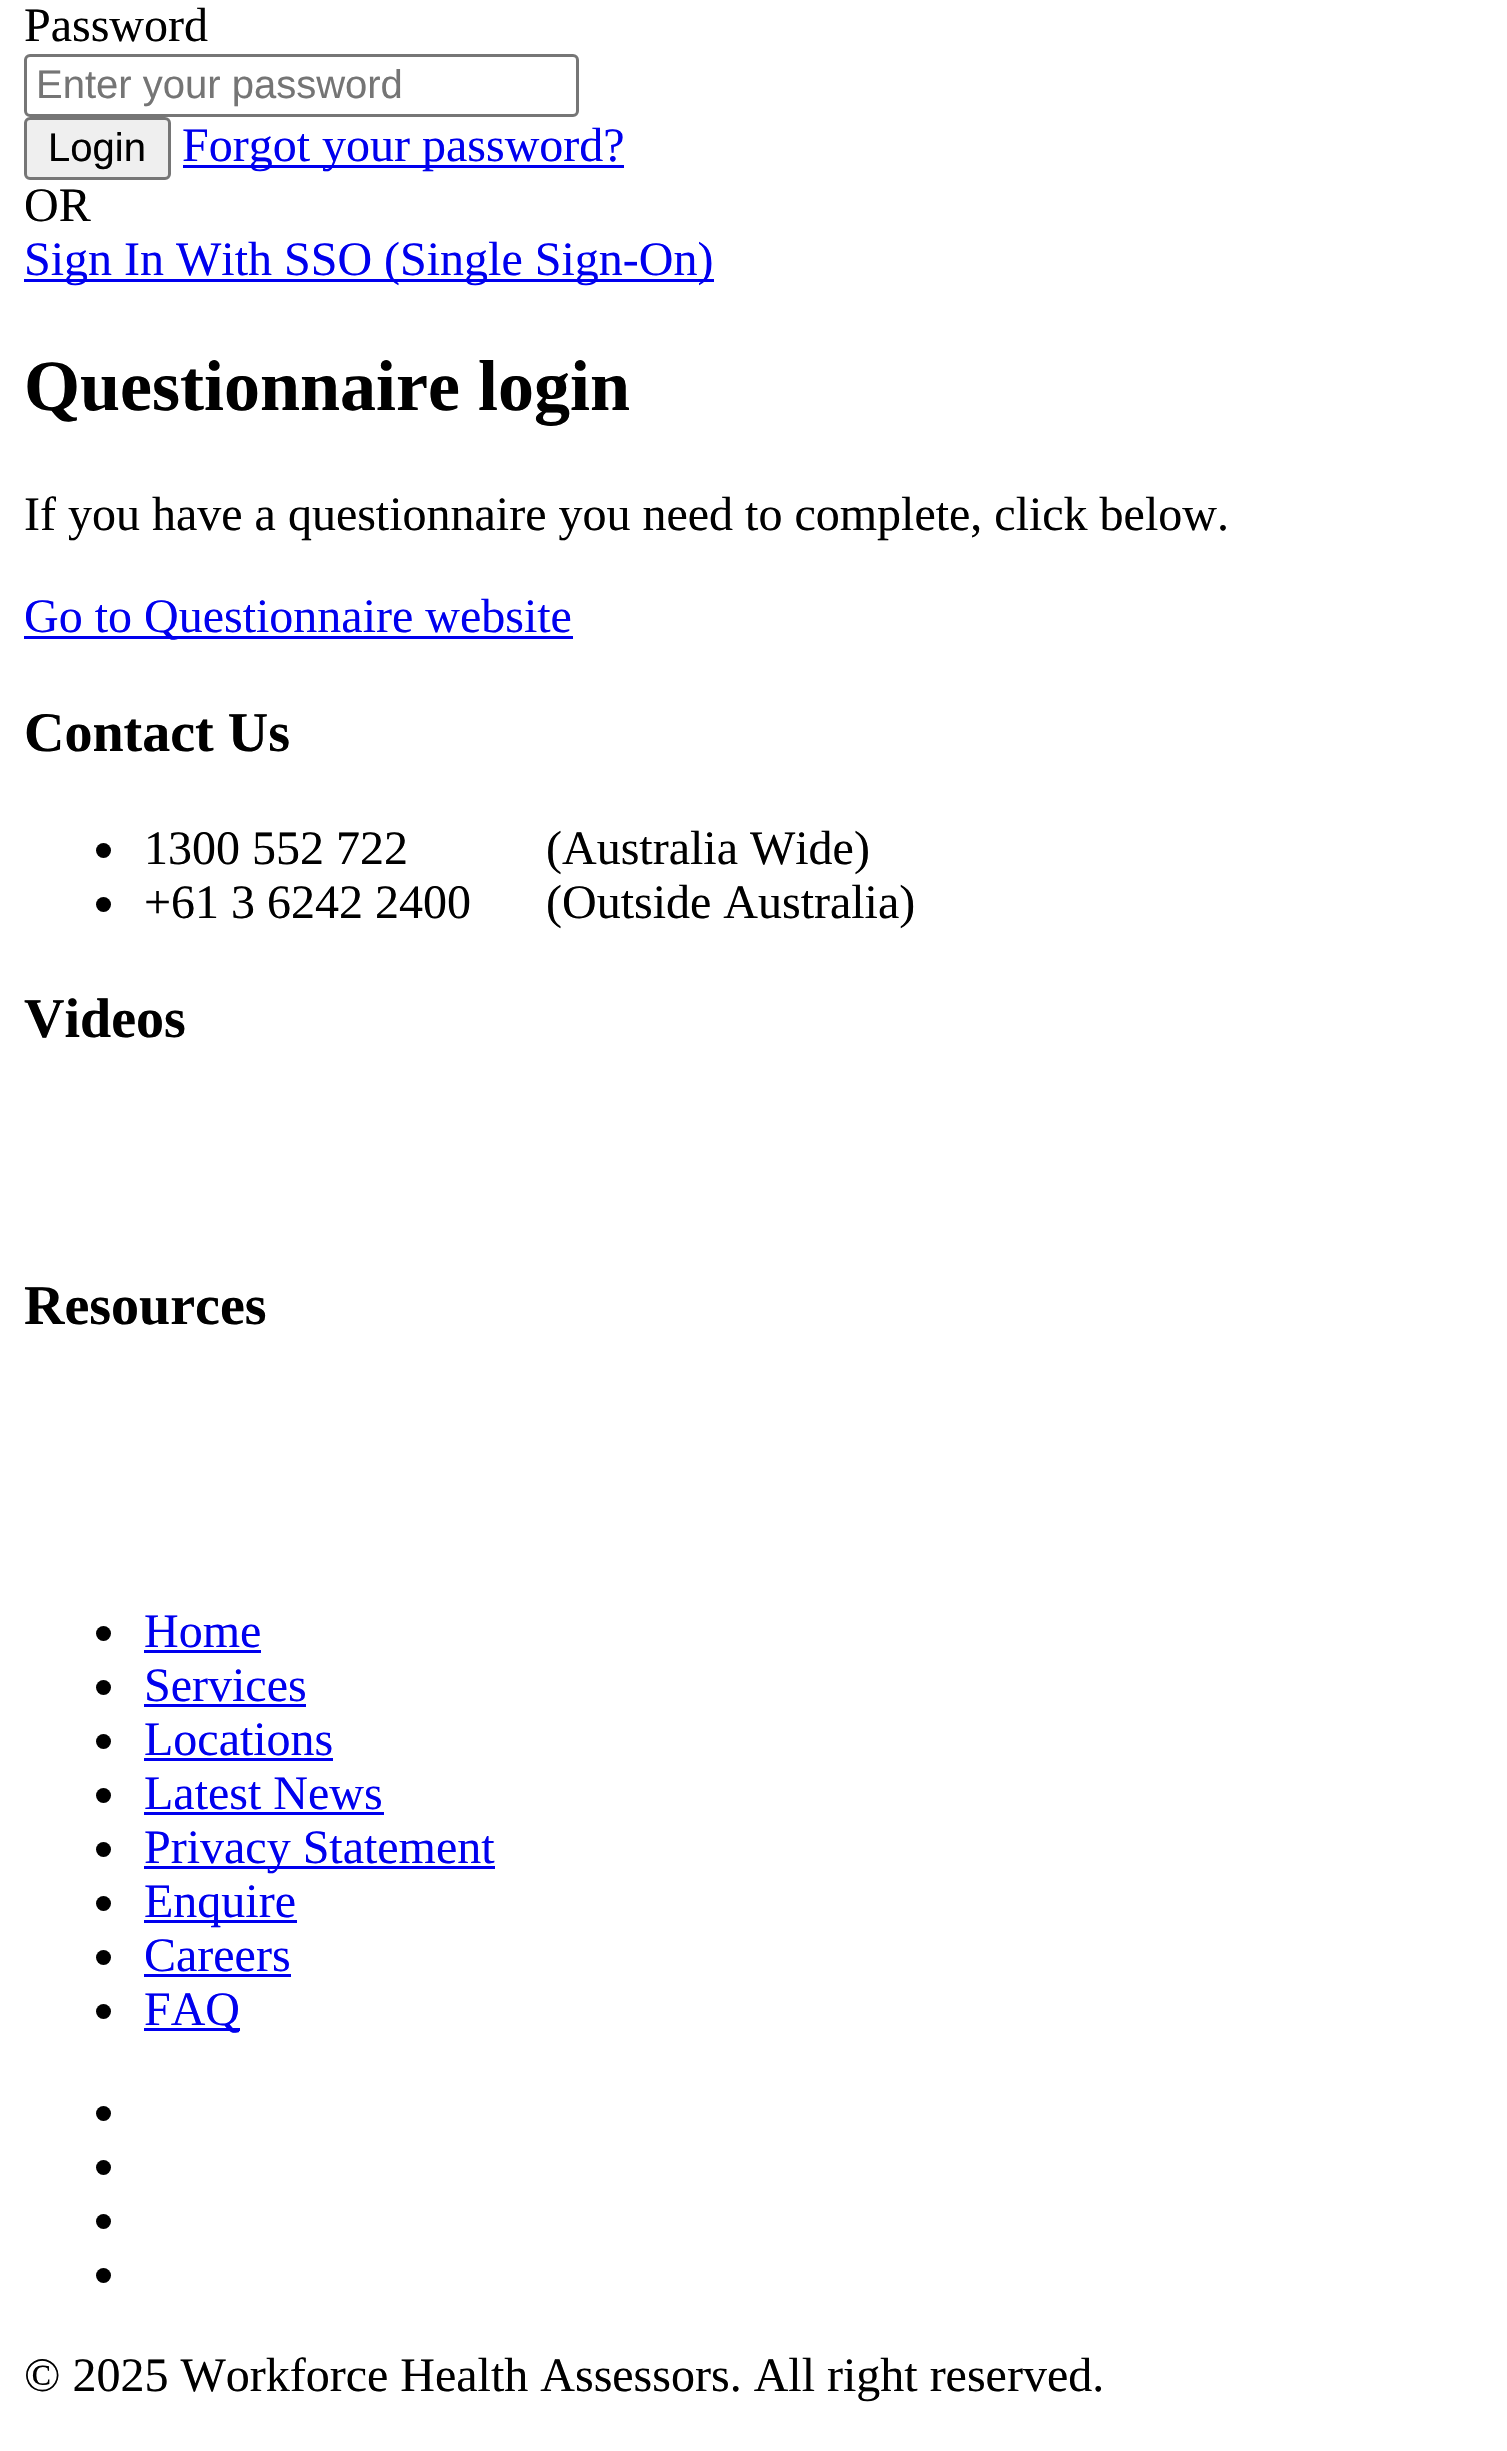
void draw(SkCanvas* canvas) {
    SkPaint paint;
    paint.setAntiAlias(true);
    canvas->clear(0xFFFFFFFF);
    SkFont font1(fontMgr->matchFamilyStyle("Liberation Serif", SkFontStyle::Normal()), 48);
    font1.setSubpixel(true);
    paint.setColor(0xFF000000);
    canvas->drawString("Password", 24, 41, font1, paint);
    paint.setStyle(SkPaint::kStroke_Style);
    paint.setStrokeWidth(3);
    paint.setColor(0xFF767676);
    canvas->drawRoundRect(SkRect::MakeXYWH(25.5f, 55.5f, 552, 60), 4.5f, 4.5f, paint);
    SkFont font2(fontMgr->matchFamilyStyle("Liberation Sans", SkFontStyle::Normal()), 40);
    font2.setSubpixel(true);
    paint.setStyle(SkPaint::kFill_Style);
    paint.setColor(0xFF757575);
    canvas->drawString("Enter your password", 36, 98, font2, paint);
    paint.setColor(0xFFEFEFEF);
    canvas->drawRoundRect(SkRect::MakeXYWH(25.5f, 118.5f, 144, 60), 4.5f, 4.5f, paint);
    paint.setStyle(SkPaint::kStroke_Style);
    paint.setColor(0xFF767676);
    canvas->drawRoundRect(SkRect::MakeXYWH(25.5f, 118.5f, 144, 60), 4.5f, 4.5f, paint);
    paint.setStyle(SkPaint::kFill_Style);
    paint.setColor(0xFF000000);
    canvas->drawString("Login", 48, 161, font2, paint);
    paint.setColor(0xFF0000EE);
    canvas->drawRect(SkRect::MakeXYWH(183, 165, 441, 3), paint);
    canvas->drawString("Forgot your password?", 182, 161, font1, paint);
    paint.setColor(0xFF000000);
    canvas->drawString("OR", 24, 221, font1, paint);
    paint.setColor(0xFF0000EE);
    canvas->drawRect(SkRect::MakeXYWH(24, 279, 690, 3), paint);
    canvas->drawString("Sign In With SSO (Single Sign-On)", 24, 275, font1, paint);
    SkFont font3(fontMgr->matchFamilyStyle("Liberation Serif", SkFontStyle::Bold()), 72);
    font3.setSubpixel(true);
    paint.setColor(0xFF000000);
    canvas->drawString("Questionnaire login", 24, 410, font3, paint);
    canvas->drawString("If you have a questionnaire you need to complete, click below.", 24, 530, font1, paint);
    paint.setColor(0xFF0000EE);
    canvas->drawRect(SkRect::MakeXYWH(24, 636, 549, 3), paint);
    canvas->drawString("Go to Questionnaire website", 24, 632, font1, paint);
    SkFont font4(fontMgr->matchFamilyStyle("Liberation Serif", SkFontStyle::Bold()), 56);
    font4.setSubpixel(true);
    paint.setColor(0xFF000000);
    canvas->drawString("Contact Us", 24, 751, font4, paint);
    canvas->drawCircle(103.5f, 850.5f, 7.5f, paint);
    canvas->drawString("1300 552 722", 144, 864, font1, paint);
    canvas->drawString("(Australia Wide)", 546, 864, font1, paint);
    canvas->drawCircle(103.5f, 904.5f, 7.5f, paint);
    canvas->drawString("+61 3 6242 2400", 144, 918, font1, paint);
    canvas->drawString("(Outside Australia)", 546, 918, font1, paint);
    canvas->drawString("Videos", 24, 1037, font4, paint);
    canvas->drawString("Resources", 24, 1324, font4, paint);
    canvas->drawCircle(103.5f, 1633.5f, 7.5f, paint);
    paint.setColor(0xFF0000EE);
    canvas->drawString("Home", 144, 1647, font1, paint);
    canvas->drawRect(SkRect::MakeXYWH(144, 1650, 117, 3), paint);
    paint.setColor(0xFF000000);
    canvas->drawCircle(103.5f, 1687.5f, 7.5f, paint);
    paint.setColor(0xFF0000EE);
    canvas->drawString("Services", 144, 1701, font1, paint);
    canvas->drawRect(SkRect::MakeXYWH(144, 1704, 162, 3), paint);
    paint.setColor(0xFF000000);
    canvas->drawCircle(103.5f, 1741.5f, 7.5f, paint);
    paint.setColor(0xFF0000EE);
    canvas->drawString("Locations", 144, 1755, font1, paint);
    canvas->drawRect(SkRect::MakeXYWH(144, 1758, 189, 3), paint);
    paint.setColor(0xFF000000);
    canvas->drawCircle(103.5f, 1795.5f, 7.5f, paint);
    paint.setColor(0xFF0000EE);
    canvas->drawString("Latest News", 144, 1809, font1, paint);
    canvas->drawRect(SkRect::MakeXYWH(144, 1812, 240, 3), paint);
    paint.setColor(0xFF000000);
    canvas->drawCircle(103.5f, 1849.5f, 7.5f, paint);
    paint.setColor(0xFF0000EE);
    canvas->drawRect(SkRect::MakeXYWH(144, 1866, 351, 3), paint);
    canvas->drawString("Privacy Statement", 144, 1863, font1, paint);
    paint.setColor(0xFF000000);
    canvas->drawCircle(103.5f, 1903.5f, 7.5f, paint);
    paint.setColor(0xFF0000EE);
    canvas->drawRect(SkRect::MakeXYWH(144, 1920, 153, 3), paint);
    canvas->drawString("Enquire", 144, 1917, font1, paint);
    paint.setColor(0xFF000000);
    canvas->drawCircle(103.5f, 1957.5f, 7.5f, paint);
    paint.setColor(0xFF0000EE);
    canvas->drawString("Careers", 144, 1971, font1, paint);
    canvas->drawRect(SkRect::MakeXYWH(144, 1974, 147, 3), paint);
    paint.setColor(0xFF000000);
    canvas->drawCircle(103.5f, 2011.5f, 7.5f, paint);
    paint.setColor(0xFF0000EE);
    canvas->drawRect(SkRect::MakeXYWH(144, 2028, 96, 3), paint);
    canvas->drawString("FAQ", 144, 2025, font1, paint);
    paint.setColor(0xFF000000);
    canvas->drawCircle(103.5f, 2113.5f, 7.5f, paint);
    canvas->drawCircle(103.5f, 2167.5f, 7.5f, paint);
    canvas->drawCircle(103.5f, 2221.5f, 7.5f, paint);
    canvas->drawCircle(103.5f, 2275.5f, 7.5f, paint);
    canvas->drawString("© 2025 Workforce Health Assessors. All right reserved.", 24, 2391, font1, paint);
}
